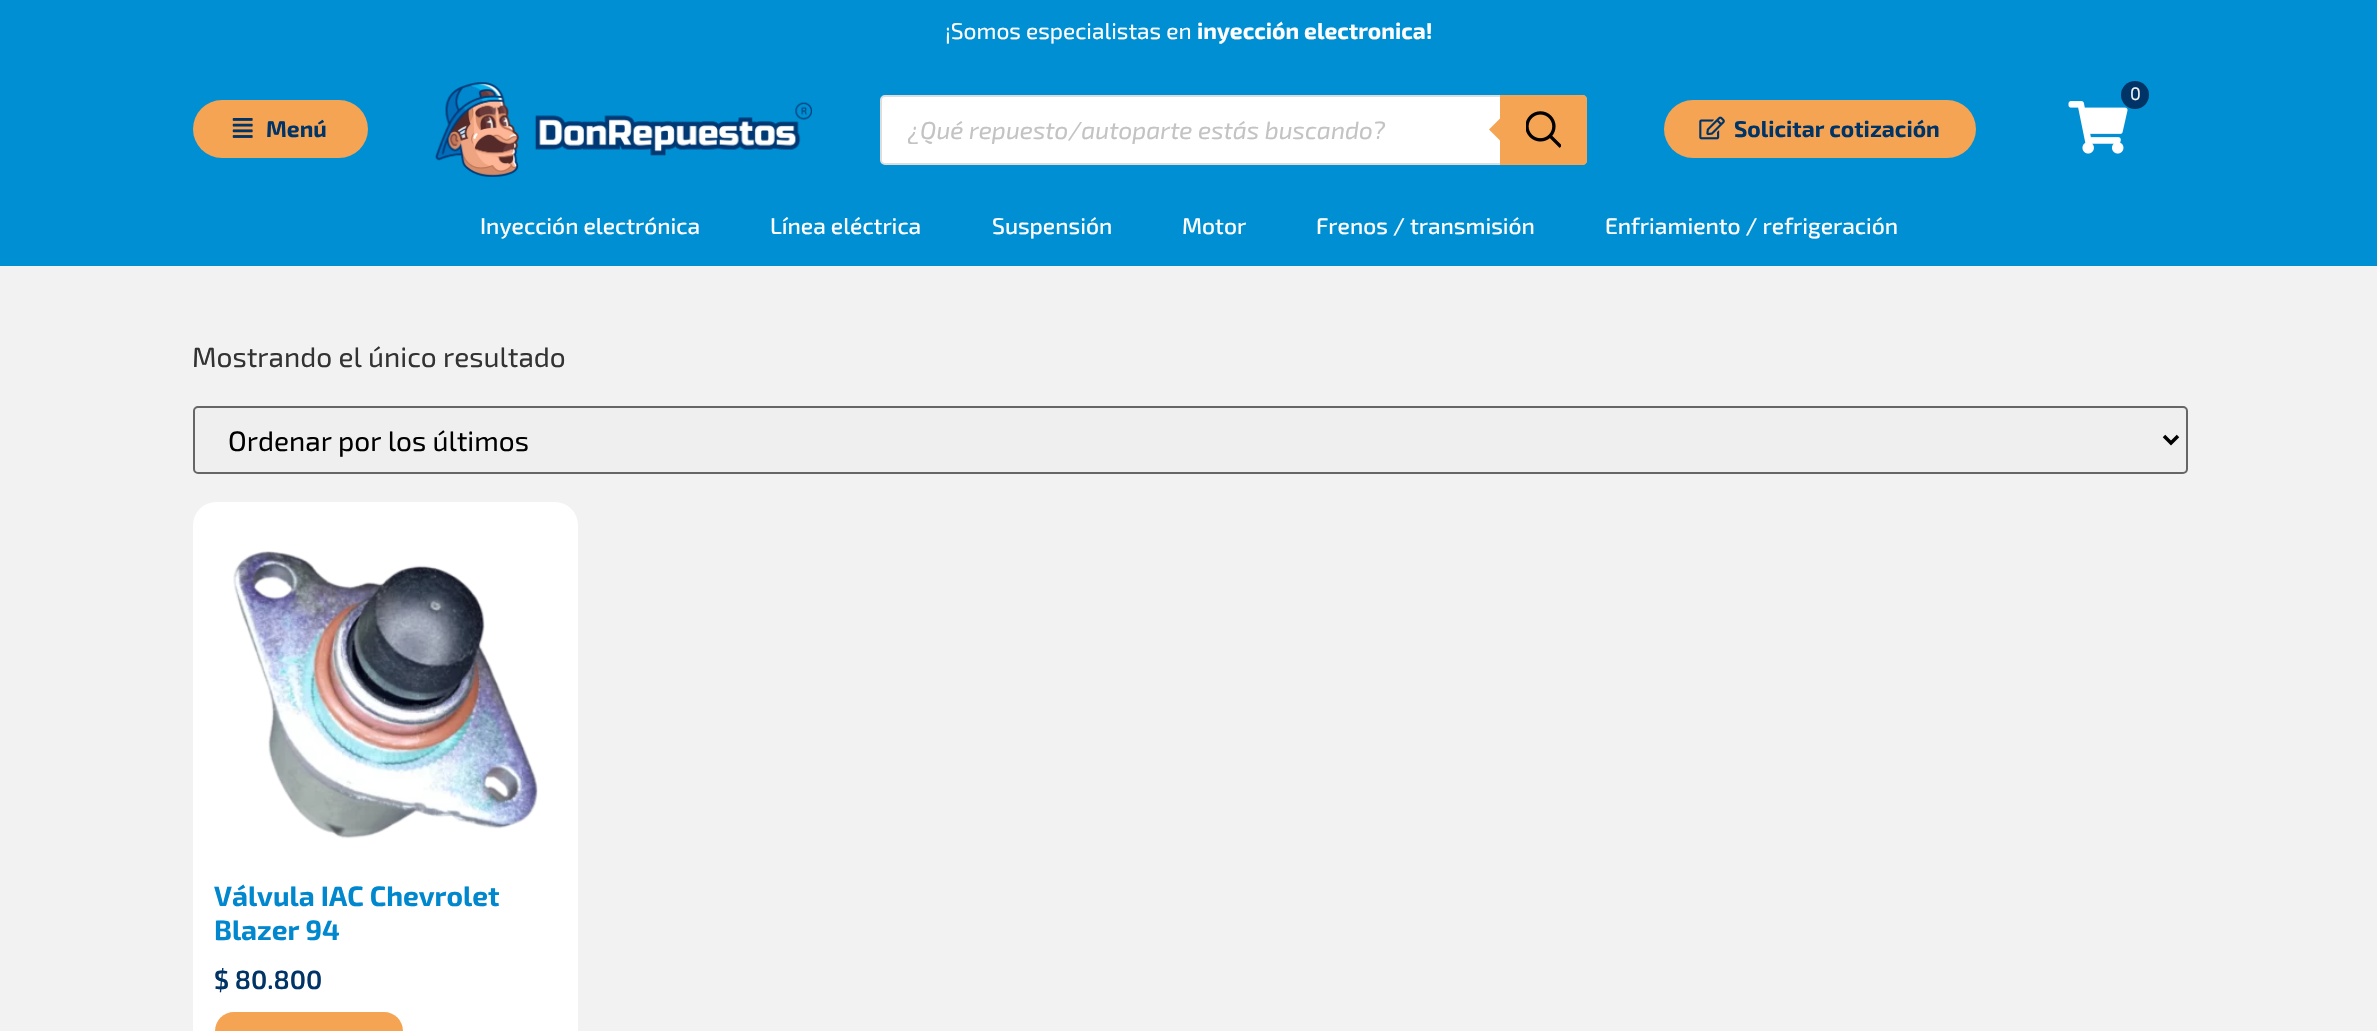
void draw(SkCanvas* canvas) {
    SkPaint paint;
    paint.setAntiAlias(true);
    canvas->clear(0xFFF2F2F2);
    paint.setColor(0xFF008FD3);
    canvas->drawRect(SkRect::MakeXYWH(0, 0, 2377, 266), paint);
    SkFont font1(fontMgr->matchFamilyStyle("Exo 2", SkFontStyle::Normal()), 22.75f);
    font1.setSubpixel(true);
    paint.setColor(0xFFFFFFFF);
    canvas->drawString("¡Somos especialistas en", 945, 39, font1, paint);
    SkFont font2(fontMgr->matchFamilyStyle("Exo 2", SkFontStyle::Bold()), 22.75f);
    font2.setSubpixel(true);
    canvas->drawString("inyección electronica!", 1197, 39, font2, paint);
    canvas->drawImageRect(SkImages::DeferredFromEncodedData(SkData::MakeFromFileName("img1.png")), SkRect::MakeXYWH(435, 82, 377, 95), SkSamplingOptions());
    canvas->drawImageRect(SkImages::DeferredFromEncodedData(SkData::MakeFromFileName("img2.png")), SkRect::MakeXYWH(2068, 101, 60, 53), SkSamplingOptions());
    paint.setColor(0xFF003366);
    canvas->drawCircle(2135, 95, 14, paint);
    SkFont font3(fontMgr->matchFamilyStyle("Exo 2", SkFontStyle::Normal()), 18);
    font3.setSubpixel(true);
    paint.setColor(0xFFF2F2F2);
    canvas->drawString("0", 2130, 100, font3, paint);
    paint.setColor(0xFFF4A453);
    canvas->drawRoundRect(SkRect::MakeXYWH(193, 100, 175, 58), 29, 29, paint);
    canvas->drawImageRect(SkImages::DeferredFromEncodedData(SkData::MakeFromFileName("img3.png")), SkRect::MakeXYWH(232, 118, 21, 20), SkSamplingOptions());
    paint.setColor(0xFF003366);
    canvas->drawString("Menú", 266, 137, font2, paint);
    paint.setColor(0xFFFFFFFF);
    canvas->drawRoundRect(SkRect::MakeXYWH(881, 96, 705, 68), 4, 4, paint);
    paint.setStyle(SkPaint::kStroke_Style);
    paint.setStrokeWidth(2);
    paint.setColor(0xFFDDDDDD);
    canvas->drawRoundRect(SkRect::MakeXYWH(881, 96, 705, 68), 4, 4, paint);
    canvas->save();
    canvas->clipRect(SkRect::MakeXYWH(908, 114, 651, 30));
    SkFont font4(fontMgr->matchFamilyStyle("Exo 2", SkFontStyle::Italic()), 24.5f);
    font4.setSubpixel(true);
    paint.setStyle(SkPaint::kFill_Style);
    paint.setColor(0xFFC3C3C3);
    canvas->drawString("¿Qué repuesto/autoparte estás buscando?", 908, 139, font4, paint);
    canvas->restore();
    paint.setColor(0xFFF4A453);
    canvas->drawPath(SkPathBuilder().moveTo(1500, 95).lineTo(1583, 95).cubicTo(1585, 95, 1587, 97, 1587, 99).lineTo(1587, 161).cubicTo(1587, 163, 1585, 165, 1583, 165).lineTo(1500, 165).close().detach(), paint);
    canvas->drawPath(SkPathBuilder().moveTo(1503, 115.5f).lineTo(1503, 143.5f).lineTo(1489, 129.5f).close().detach(), paint);
    canvas->drawImageRect(SkImages::DeferredFromEncodedData(SkData::MakeFromFileName("img4.png")), SkRect::MakeXYWH(1526, 111, 35, 37), SkSamplingOptions());
    canvas->drawRoundRect(SkRect::MakeXYWH(1664, 100, 312, 58), 29, 29, paint);
    canvas->drawImageRect(SkImages::DeferredFromEncodedData(SkData::MakeFromFileName("img5.png")), SkRect::MakeXYWH(1699, 116, 26, 24), SkSamplingOptions());
    paint.setColor(0xFF003366);
    canvas->drawString("Solicitar cotización", 1734, 137, font2, paint);
    SkFont font5(fontMgr->matchFamilyStyle("Exo 2", SkFontStyle(500, SkFontStyle::kNormal_Width, SkFontStyle::kUpright_Slant)), 22.75f);
    font5.setSubpixel(true);
    paint.setColor(0xFFFFFFFF);
    canvas->drawString("Inyección electrónica", 480, 234, font5, paint);
    canvas->drawString("Línea eléctrica", 770, 234, font5, paint);
    canvas->drawString("Suspensión", 992, 234, font5, paint);
    canvas->drawString("Motor", 1182, 234, font5, paint);
    canvas->drawString("Frenos / transmisión", 1316, 234, font5, paint);
    canvas->drawString("Enfriamiento / refrigeración", 1605, 234, font5, paint);
    SkFont font6(fontMgr->matchFamilyStyle("Exo 2", SkFontStyle::Normal()), 28);
    font6.setSubpixel(true);
    paint.setColor(0xFF333333);
    canvas->drawString("Mostrando el único resultado", 192, 367, font6, paint);
    paint.setColor(0xFFEFEFEF);
    canvas->drawRoundRect(SkRect::MakeXYWH(194, 407, 1993, 66), 4, 4, paint);
    paint.setStyle(SkPaint::kStroke_Style);
    paint.setColor(0xFF666666);
    canvas->drawRoundRect(SkRect::MakeXYWH(194, 407, 1993, 66), 4, 4, paint);
    paint.setStrokeWidth(3.5f);
    paint.setColor(0xFF000000);
    canvas->drawPath(SkPathBuilder().moveTo(2164, 436).lineTo(2171, 443).lineTo(2178, 436).detach(), paint);
    paint.setStyle(SkPaint::kFill_Style);
    canvas->drawString("Ordenar por los últimos", 228, 451, font6, paint);
    paint.setColor(0xFFFFFFFF);
    canvas->drawRoundRect(SkRect::MakeXYWH(193, 502, 385, 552), 23, 23, paint);
    canvas->drawImageRect(SkImages::DeferredFromEncodedData(SkData::MakeFromFileName("img6.png")), SkRect::MakeXYWH(233, 551, 305, 288), SkSamplingOptions());
    SkFont font7(fontMgr->matchFamilyStyle("Exo 2", SkFontStyle::Bold()), 28);
    font7.setSubpixel(true);
    paint.setColor(0xFF0087CD);
    canvas->drawString("Válvula IAC Chevrolet", 214, 906, font7, paint);
    canvas->drawString("Blazer 94", 214, 940, font7, paint);
    SkFont font8(fontMgr->matchFamilyStyle("Exo 2", SkFontStyle(600, SkFontStyle::kNormal_Width, SkFontStyle::kUpright_Slant)), 26.25f);
    font8.setSubpixel(true);
    paint.setColor(0xFF003366);
    canvas->drawString("$ 80.800", 214, 989, font8, paint);
    paint.setColor(0xFFF4A453);
    canvas->drawRoundRect(SkRect::MakeXYWH(215, 1012, 188, 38), 19, 19, paint);
}
